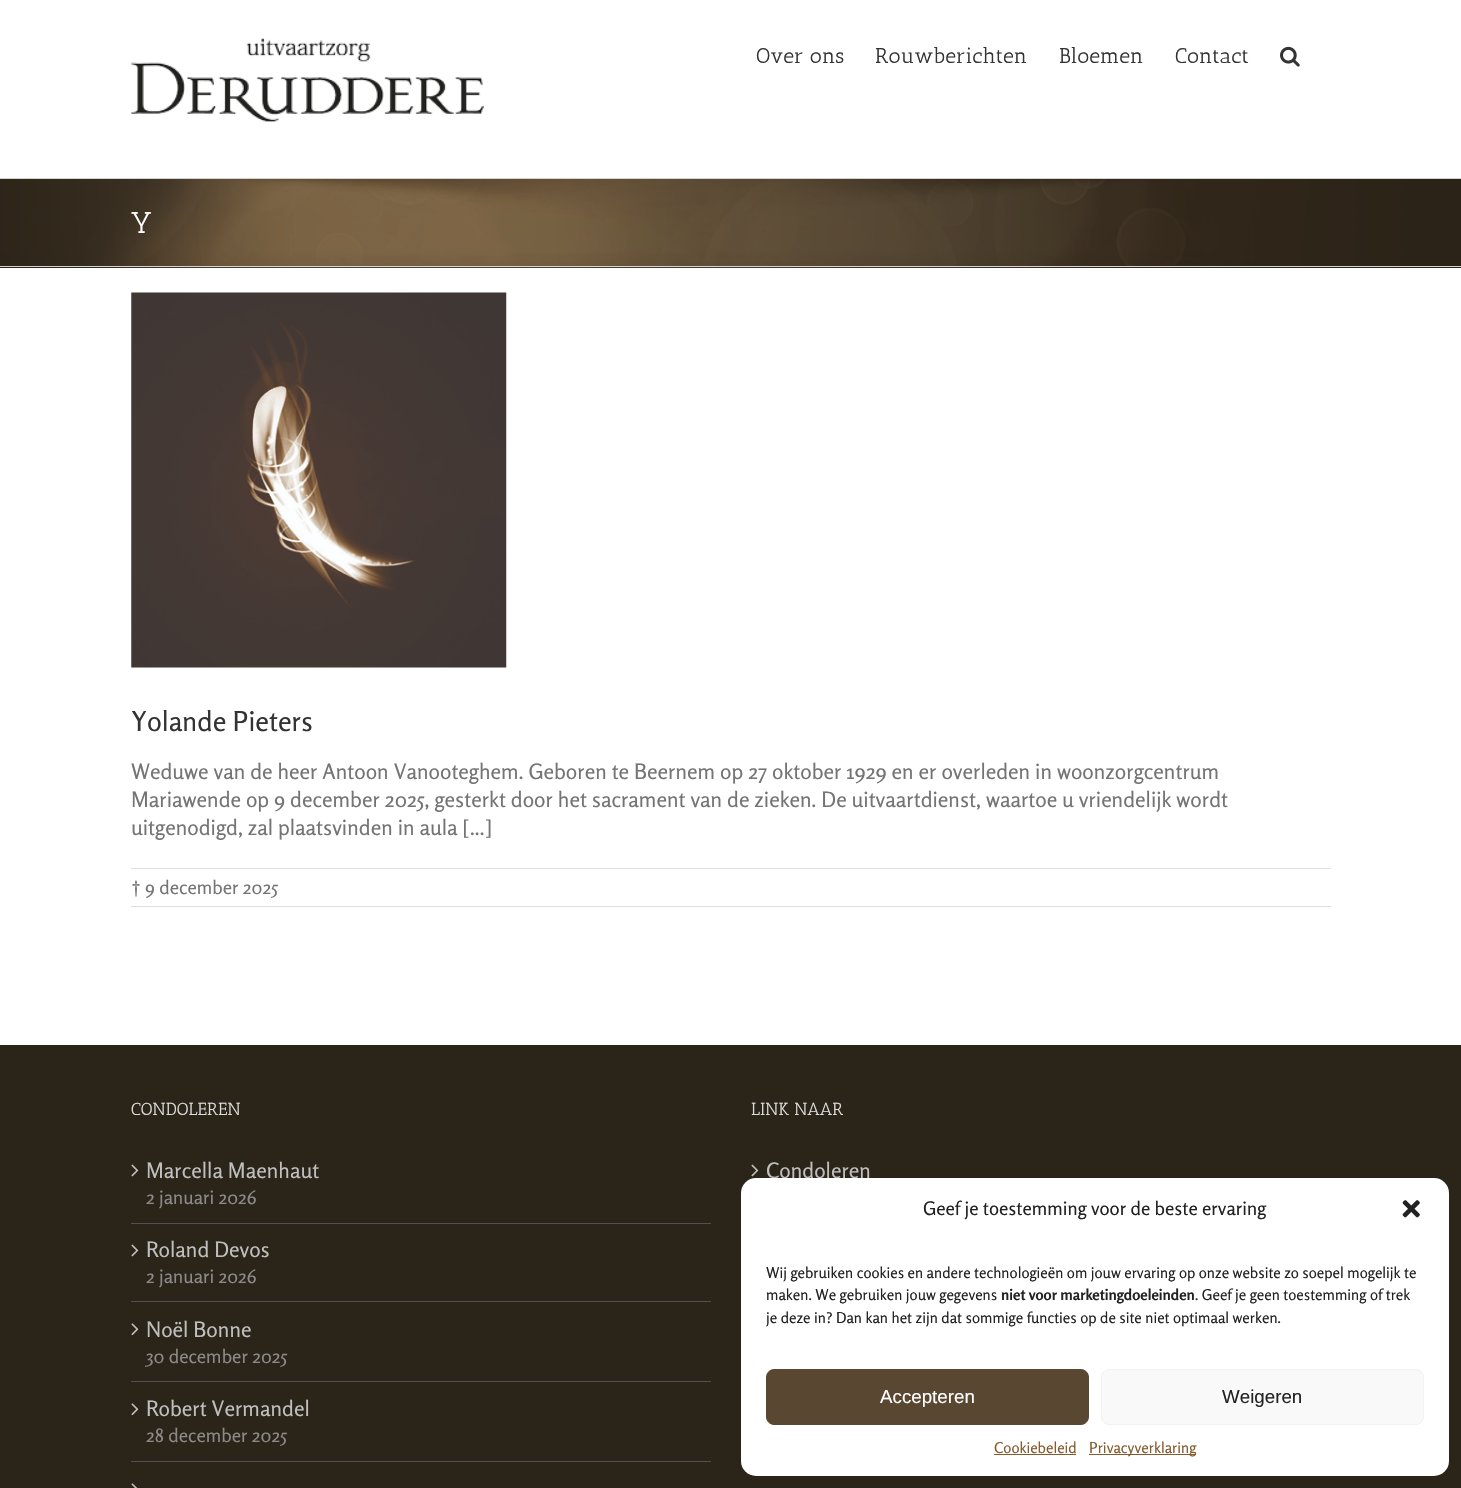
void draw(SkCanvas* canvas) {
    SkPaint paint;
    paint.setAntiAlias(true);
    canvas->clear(0xFFFFFFFF);
    canvas->drawImageRect(SkImages::DeferredFromEncodedData(SkData::MakeFromFileName("img1.png")), SkRect::MakeXYWH(131, 38, 353, 85), SkSamplingOptions());
    SkFont font1(fontMgr->matchFamilyStyle("Antic Slab", SkFontStyle::Normal()), 21.25f);
    font1.setSubpixel(true);
    paint.setColor(0xFF333333);
    canvas->drawString("Over ons", 756, 63, font1, paint);
    canvas->drawString("Rouwberichten", 875, 63, font1, paint);
    canvas->drawString("Bloemen", 1059, 63, font1, paint);
    canvas->drawString("Contact", 1175, 63, font1, paint);
    canvas->drawImageRect(SkImages::DeferredFromEncodedData(SkData::MakeFromFileName("img2.png")), SkRect::MakeXYWH(1280, 46, 20, 21), SkSamplingOptions());
    paint.setColor(0xFF2C2318);
    canvas->drawRect(SkRect::MakeXYWH(0, 267, 1461, 1), paint);
    canvas->drawImageRect(SkImages::DeferredFromEncodedData(SkData::MakeFromFileName("img3.png")), SkRect::MakeXYWH(0, 179, 1461, 89), SkSamplingOptions());
    paint.setColor(0xFFD2D3D4);
    canvas->drawRect(SkRect::MakeXYWH(0, 178, 1461, 1), paint);
    canvas->drawRect(SkRect::MakeXYWH(0, 266, 1461, 1), paint);
    SkFont font2(fontMgr->matchFamilyStyle("Antic Slab", SkFontStyle::Normal()), 30);
    font2.setSubpixel(true);
    paint.setColor(0xFFFFFFFF);
    canvas->drawString("Y", 131, 233, font2, paint);
    canvas->drawImageRect(SkImages::DeferredFromEncodedData(SkData::MakeFromFileName("img4.png")), SkRect::MakeXYWH(131, 292, 376, 376), SkSamplingOptions());
    SkFont font3(fontMgr->matchFamilyStyle("Rosario", SkFontStyle::Normal()), 27.5f);
    font3.setSubpixel(true);
    paint.setColor(0xFF333333);
    canvas->drawString("Yolande Pieters", 131, 731, font3, paint);
    SkFont font4(fontMgr->matchFamilyStyle("Rosario", SkFontStyle::Normal()), 21.25f);
    font4.setSubpixel(true);
    paint.setColor(0xFF747474);
    canvas->drawString("Weduwe van de heer Antoon Vanooteghem. Geboren te Beernem op 27 oktober 1929 en er overleden in woonzorgcentrum", 131, 779, font4, paint);
    canvas->drawString("Mariawende op 9 december 2025, gesterkt door het sacrament van de zieken. De uitvaartdienst, waartoe u vriendelijk wordt", 131, 807, font4, paint);
    canvas->drawString("uitgenodigd, zal plaatsvinden in aula [...]", 131, 835, font4, paint);
    paint.setColor(0xFFE0DEDE);
    canvas->drawRect(SkRect::MakeXYWH(131, 868, 1200, 1), paint);
    canvas->drawRect(SkRect::MakeXYWH(131, 906, 1200, 1), paint);
    SkFont font5(fontMgr->matchFamilyStyle("Rosario", SkFontStyle::Normal()), 18.75f);
    font5.setSubpixel(true);
    paint.setColor(0xFF747474);
    canvas->drawString("† 9 december 2025", 131, 894, font5, paint);
    paint.setColor(0xFF2B2419);
    canvas->drawRect(SkRect::MakeXYWH(0, 1045, 1461, 443), paint);
    SkFont font6(fontMgr->matchFamilyStyle("Antic Slab", SkFontStyle::Normal()), 17.5f);
    font6.setSubpixel(true);
    paint.setColor(0xFFDDDDDD);
    canvas->drawString("CONDOLEREN", 131, 1115, font6, paint);
    paint.setColor(0xFF505152);
    canvas->drawRect(SkRect::MakeXYWH(131, 1223, 580, 1), paint);
    canvas->drawImageRect(SkImages::DeferredFromEncodedData(SkData::MakeFromFileName("img5.png")), SkRect::MakeXYWH(131, 1164, 8, 13), SkSamplingOptions());
    paint.setColor(0xFFBFBFBF);
    canvas->drawString("Marcella Maenhaut", 146, 1178, font4, paint);
    paint.setColor(0xFF8C8989);
    canvas->drawString("2 januari 2026", 146, 1204, font5, paint);
    paint.setColor(0xFF505152);
    canvas->drawRect(SkRect::MakeXYWH(131, 1301, 580, 1), paint);
    canvas->drawImageRect(SkImages::DeferredFromEncodedData(SkData::MakeFromFileName("img5.png")), SkRect::MakeXYWH(131, 1244, 8, 13), SkSamplingOptions());
    paint.setColor(0xFFBFBFBF);
    canvas->drawString("Roland Devos", 146, 1257, font4, paint);
    paint.setColor(0xFF8C8989);
    canvas->drawString("2 januari 2026", 146, 1283, font5, paint);
    paint.setColor(0xFF505152);
    canvas->drawRect(SkRect::MakeXYWH(131, 1381, 580, 1), paint);
    canvas->drawImageRect(SkImages::DeferredFromEncodedData(SkData::MakeFromFileName("img6.png")), SkRect::MakeXYWH(131, 1323, 8, 13), SkSamplingOptions());
    paint.setColor(0xFFBFBFBF);
    canvas->drawString("Noël Bonne", 146, 1337, font4, paint);
    paint.setColor(0xFF8C8989);
    canvas->drawString("30 december 2025", 146, 1363, font5, paint);
    paint.setColor(0xFF505152);
    canvas->drawRect(SkRect::MakeXYWH(131, 1461, 580, 1), paint);
    canvas->drawImageRect(SkImages::DeferredFromEncodedData(SkData::MakeFromFileName("img6.png")), SkRect::MakeXYWH(131, 1403, 8, 13), SkSamplingOptions());
    paint.setColor(0xFFBFBFBF);
    canvas->drawString("Robert Vermandel", 146, 1416, font4, paint);
    paint.setColor(0xFF8C8989);
    canvas->drawString("28 december 2025", 146, 1442, font5, paint);
    canvas->drawImageRect(SkImages::DeferredFromEncodedData(SkData::MakeFromFileName("img7.png")), SkRect::MakeXYWH(131, 1483, 7, 5), SkSamplingOptions());
    paint.setColor(0xFFDDDDDD);
    canvas->drawString("LINK NAAR", 751, 1115, font6, paint);
    canvas->drawImageRect(SkImages::DeferredFromEncodedData(SkData::MakeFromFileName("img5.png")), SkRect::MakeXYWH(751, 1164, 8, 13), SkSamplingOptions());
    paint.setColor(0xFFBFBFBF);
    canvas->drawString("Condoleren", 766, 1178, font4, paint);
    paint.setColor(0xFFFFFFFF);
    canvas->drawRoundRect(SkRect::MakeXYWH(741, 1178, 708, 298), 15, 15, paint);
    paint.setColor(0xFF222222);
    canvas->drawString("Geef je toestemming voor de beste ervaring", 923, 1215, font5, paint);
    canvas->drawImageRect(SkImages::DeferredFromEncodedData(SkData::MakeFromFileName("img8.png")), SkRect::MakeXYWH(1402, 1200, 18, 18), SkSamplingOptions());
    SkFont font7(fontMgr->matchFamilyStyle("Rosario", SkFontStyle::Normal()), 15);
    font7.setSubpixel(true);
    canvas->drawString("Wij gebruiken cookies en andere technologieën om jouw ervaring op onze website zo soepel mogelijk te", 766, 1278, font7, paint);
    canvas->drawString("maken. We gebruiken jouw gegevens", 766, 1300, font7, paint);
    SkFont font8(fontMgr->matchFamilyStyle("Rosario", SkFontStyle::Bold()), 15);
    font8.setSubpixel(true);
    canvas->drawString("niet voor marketingdoeleinden", 1001, 1300, font8, paint);
    canvas->drawString(". Geef je geen toestemming of trek", 1195, 1300, font7, paint);
    canvas->drawString("je deze in? Dan kan het zijn dat sommige functies op de site niet optimaal werken.", 766, 1323, font7, paint);
    paint.setColor(0xFF5A4732);
    canvas->drawRoundRect(SkRect::MakeXYWH(766.5f, 1369.5f, 322, 55), 7.5f, 7.5f, paint);
    paint.setStyle(SkPaint::kStroke_Style);
    paint.setStrokeWidth(1);
    canvas->drawRoundRect(SkRect::MakeXYWH(766.5f, 1369.5f, 322, 55), 7.5f, 7.5f, paint);
    SkFont font9(fontMgr->matchFamilyStyle("Liberation Sans", SkFontStyle::Normal()), 18.75f);
    font9.setSubpixel(true);
    paint.setStyle(SkPaint::kFill_Style);
    paint.setColor(0xFFFFFFFF);
    canvas->drawString("Accepteren", 880, 1403, font9, paint);
    paint.setColor(0xFFF9F9F9);
    canvas->drawRoundRect(SkRect::MakeXYWH(1101.5f, 1369.5f, 322, 55), 7.5f, 7.5f, paint);
    paint.setStyle(SkPaint::kStroke_Style);
    paint.setColor(0xFFF2F2F2);
    canvas->drawRoundRect(SkRect::MakeXYWH(1101.5f, 1369.5f, 322, 55), 7.5f, 7.5f, paint);
    paint.setStyle(SkPaint::kFill_Style);
    paint.setColor(0xFF222222);
    canvas->drawString("Weigeren", 1222, 1403, font9, paint);
    paint.setColor(0xFF855B2E);
    canvas->drawString("Cookiebeleid", 994, 1453, font7, paint);
    canvas->drawRect(SkRect::MakeXYWH(994, 1454, 82, 1), paint);
    canvas->drawRect(SkRect::MakeXYWH(1089, 1454, 107, 1), paint);
    canvas->drawString("Privacyverklaring", 1089, 1453, font7, paint);
}
